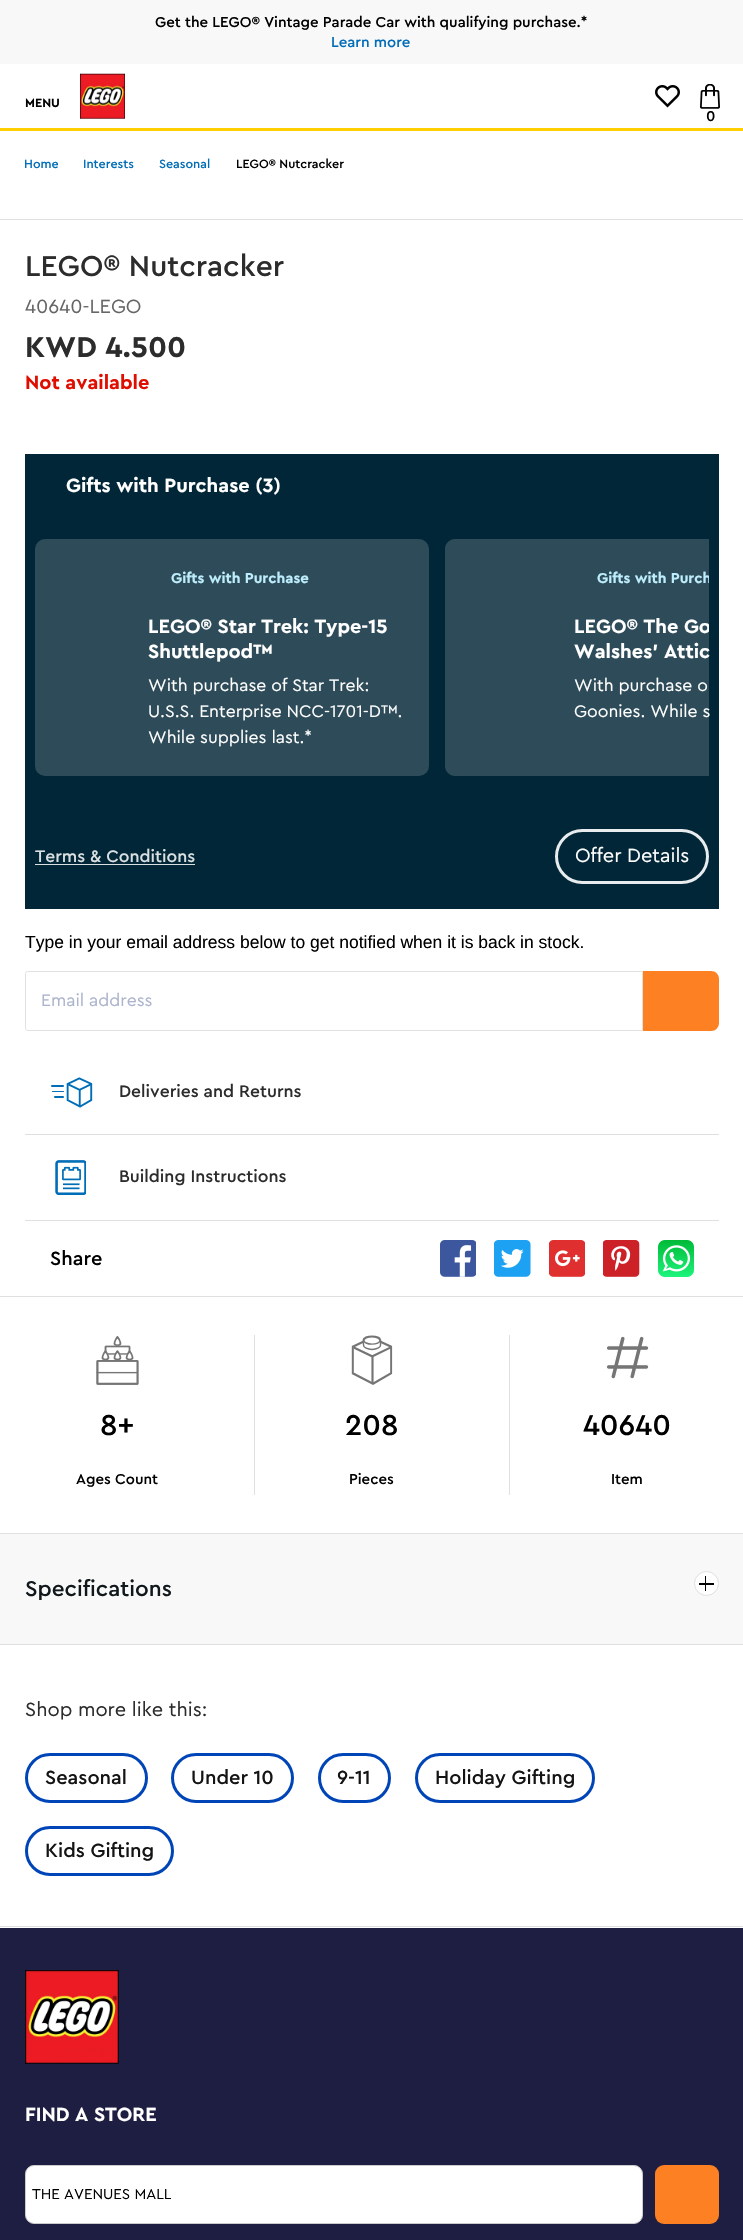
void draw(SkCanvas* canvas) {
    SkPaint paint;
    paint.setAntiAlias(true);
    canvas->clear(0xFFFFFFFF);
    paint.setColor(0xFFFFCF02);
    canvas->drawRect(SkRect::MakeXYWH(0, 128, 743, 3), paint);
    paint.setColor(0xFFF8F8F8);
    canvas->drawRect(SkRect::MakeXYWH(0, 0, 743, 64), paint);
    SkFont font1(fontMgr->matchFamilyStyle("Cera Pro", SkFontStyle(500, SkFontStyle::kNormal_Width, SkFontStyle::kUpright_Slant)), 15);
    font1.setSubpixel(true);
    paint.setColor(0xFF000000);
    canvas->drawString("Get the LEGO® Vintage Parade Car with qualifying purchase.*", 155, 27, font1, paint);
    paint.setColor(0xFF026DB7);
    canvas->drawString("Learn more", 331, 47, font1, paint);
    SkFont font2(fontMgr->matchFamilyStyle("Cera Pro", SkFontStyle::Bold()), 12.5f);
    font2.setSubpixel(true);
    paint.setColor(0xFF000000);
    canvas->drawString("MENU", 25, 107, font2, paint);
    canvas->drawImageRect(SkImages::DeferredFromEncodedData(SkData::MakeFromFileName("img1.png")), SkRect::MakeXYWH(80, 73, 45, 46), SkSamplingOptions());
    canvas->drawImageRect(SkImages::DeferredFromEncodedData(SkData::MakeFromFileName("img2.png")), SkRect::MakeXYWH(655, 85, 25, 23), SkSamplingOptions());
    canvas->drawImageRect(SkImages::DeferredFromEncodedData(SkData::MakeFromFileName("img3.png")), SkRect::MakeXYWH(700, 84, 20, 25), SkSamplingOptions());
    canvas->drawString("0", 706, 121, font1, paint);
    SkFont font3(fontMgr->matchFamilyStyle("Cera Pro", SkFontStyle(500, SkFontStyle::kNormal_Width, SkFontStyle::kUpright_Slant)), 12.5f);
    font3.setSubpixel(true);
    paint.setColor(0xFF026DB7);
    canvas->drawString("Home", 24, 168, font3, paint);
    canvas->drawString("Interests", 83, 168, font3, paint);
    canvas->drawString("Seasonal", 159, 168, font3, paint);
    paint.setColor(0xFF000000);
    canvas->drawString("LEGO® Nutcracker", 236, 168, font3, paint);
    paint.setColor(0xFFE0E0E0);
    canvas->drawRect(SkRect::MakeXYWH(0, 219, 743, 1), paint);
    SkFont font4(fontMgr->matchFamilyStyle("Cera Pro", SkFontStyle(500, SkFontStyle::kNormal_Width, SkFontStyle::kUpright_Slant)), 30);
    font4.setSubpixel(true);
    paint.setColor(0xFF2C2C2C);
    canvas->drawString("LEGO® Nutcracker", 25, 276, font4, paint);
    SkFont font5(fontMgr->matchFamilyStyle("Cera Pro", SkFontStyle::Normal()), 20);
    font5.setSubpixel(true);
    paint.setColor(0xFF666666);
    canvas->drawString("40640-LEGO", 25, 313, font5, paint);
    SkFont font6(fontMgr->matchFamilyStyle("Cera Pro", SkFontStyle::Bold()), 30);
    font6.setSubpixel(true);
    paint.setColor(0xFF2C2C2C);
    canvas->drawString("KWD 4.500", 25, 357, font6, paint);
    SkFont font7(fontMgr->matchFamilyStyle("Cera Pro", SkFontStyle::Bold()), 20);
    font7.setSubpixel(true);
    paint.setColor(0xFFE00E00);
    canvas->drawString("Not available", 25, 389, font7, paint);
    paint.setColor(0xFF002637);
    canvas->drawRect(SkRect::MakeXYWH(25, 454, 694, 455), paint);
    paint.setColor(0xFFFFFFFF);
    canvas->drawString("Gifts with Purchase (3)", 66, 492, font7, paint);
    paint.setColor(0xFF2D4B58);
    canvas->drawRoundRect(SkRect::MakeXYWH(35, 539, 394, 237), 10, 10, paint);
    SkFont font8(fontMgr->matchFamilyStyle("Cera Pro", SkFontStyle::Bold()), 15);
    font8.setSubpixel(true);
    paint.setColor(0xFFBDEDFC);
    canvas->drawString("Gifts with Purchase", 171, 583, font8, paint);
    paint.setColor(0xFFFFFFFF);
    canvas->drawString("LEGO® Star Trek: Type-15", 148, 633, font7, paint);
    canvas->drawString("Shuttlepod™", 148, 658, font7, paint);
    SkFont font9(fontMgr->matchFamilyStyle("Cera Pro", SkFontStyle::Normal()), 17.5f);
    font9.setSubpixel(true);
    canvas->drawString("With purchase of Star Trek:", 148, 691, font9, paint);
    canvas->drawString("U.S.S. Enterprise NCC-1701-D™.", 148, 717, font9, paint);
    canvas->drawString("While supplies last.*", 148, 743, font9, paint);
    paint.setColor(0xFF2D4B58);
    canvas->drawPath(SkPathBuilder().moveTo(455, 539).lineTo(709, 539).lineTo(709, 776).lineTo(455, 776).cubicTo(449.5f, 776, 445, 771.5f, 445, 766).lineTo(445, 549).cubicTo(445, 543.5f, 449.5f, 539, 455, 539).close().detach(), paint);
    canvas->save();
    canvas->clipRect(SkRect::MakeXYWH(35, 539, 674, 267));
    paint.setColor(0xFFBDEDFC);
    canvas->drawString("Gifts with Purch", 597, 583, font8, paint);
    paint.setColor(0xFFFFFFFF);
    canvas->drawString("LEGO® The Go", 574, 633, font7, paint);
    canvas->restore();
    canvas->drawString("Walshes' Attic", 574, 658, font7, paint);
    canvas->drawString("With purchase o", 574, 691, font9, paint);
    canvas->drawString("Goonies. While s", 574, 717, font9, paint);
    SkFont font10(fontMgr->matchFamilyStyle("Cera Pro", SkFontStyle(500, SkFontStyle::kNormal_Width, SkFontStyle::kUpright_Slant)), 17.5f);
    font10.setSubpixel(true);
    paint.setColor(0xFFDADFE1);
    canvas->drawString("Terms & Conditions", 35, 862, font10, paint);
    canvas->drawRect(SkRect::MakeXYWH(35, 864, 160, 1), paint);
    paint.setStyle(SkPaint::kStroke_Style);
    paint.setStrokeWidth(3);
    paint.setColor(0xFFE9ECEE);
    canvas->drawRoundRect(SkRect::MakeXYWH(556.5f, 830.5f, 151, 52), 26, 26, paint);
    paint.setStyle(SkPaint::kFill_Style);
    paint.setColor(0xFFFFFFFF);
    canvas->drawString("Offer Details", 575, 862, font5, paint);
    SkFont font11(fontMgr->matchFamilyStyle("Liberation Sans", SkFontStyle::Normal()), 17.5f);
    font11.setSubpixel(true);
    paint.setColor(0xFF000000);
    canvas->drawString("Type in your email address below to get notified when it is back in stock.", 25, 948, font11, paint);
    paint.setStyle(SkPaint::kStroke_Style);
    paint.setStrokeWidth(1);
    paint.setColor(0xFFE1E1E1);
    canvas->drawPath(SkPathBuilder().moveTo(27.5f, 971.5f).lineTo(642.5f, 971.5f).lineTo(642.5f, 1030.5f).lineTo(27.5f, 1030.5f).cubicTo(26.5f, 1030.5f, 25.5f, 1029.5f, 25.5f, 1028.5f).lineTo(25.5f, 973.5f).cubicTo(25.5f, 972.5f, 26.5f, 971.5f, 27.5f, 971.5f).close().detach(), paint);
    paint.setStyle(SkPaint::kFill_Style);
    paint.setColor(0xFFACB4CD);
    canvas->drawString("Email address", 41, 1006, font9, paint);
    paint.setColor(0xFFFD8023);
    canvas->drawPath(SkPathBuilder().moveTo(643, 971).lineTo(711, 971).cubicTo(715.5f, 971, 719, 974.5f, 719, 979).lineTo(719, 1023).cubicTo(719, 1027.5f, 715.5f, 1031, 711, 1031).lineTo(643, 1031).close().detach(), paint);
    paint.setColor(0xFFE0E0E0);
    canvas->drawRect(SkRect::MakeXYWH(25, 1134, 694, 1), paint);
    canvas->drawImageRect(SkImages::DeferredFromEncodedData(SkData::MakeFromFileName("img4.png")), SkRect::MakeXYWH(51, 1077, 42, 31), SkSamplingOptions());
    paint.setColor(0xFF2C2C2C);
    canvas->drawString("Deliveries and Returns", 119, 1097, font10, paint);
    paint.setColor(0xFFE0E0E0);
    canvas->drawRect(SkRect::MakeXYWH(25, 1220, 694, 1), paint);
    canvas->drawImageRect(SkImages::DeferredFromEncodedData(SkData::MakeFromFileName("img5.png")), SkRect::MakeXYWH(55, 1160, 31, 35), SkSamplingOptions());
    paint.setColor(0xFF2C2C2C);
    canvas->drawString("Building Instructions", 119, 1182, font10, paint);
    SkFont font12(fontMgr->matchFamilyStyle("Cera Pro", SkFontStyle(500, SkFontStyle::kNormal_Width, SkFontStyle::kUpright_Slant)), 20);
    font12.setSubpixel(true);
    paint.setColor(0xFF000000);
    canvas->drawString("Share", 50, 1265, font12, paint);
    canvas->drawImageRect(SkImages::DeferredFromEncodedData(SkData::MakeFromFileName("img6.png")), SkRect::MakeXYWH(440, 1240, 36, 37), SkSamplingOptions());
    canvas->drawImageRect(SkImages::DeferredFromEncodedData(SkData::MakeFromFileName("img7.png")), SkRect::MakeXYWH(494, 1240, 37, 37), SkSamplingOptions());
    canvas->drawImageRect(SkImages::DeferredFromEncodedData(SkData::MakeFromFileName("img8.png")), SkRect::MakeXYWH(549, 1240, 36, 37), SkSamplingOptions());
    canvas->drawImageRect(SkImages::DeferredFromEncodedData(SkData::MakeFromFileName("img9.png")), SkRect::MakeXYWH(603, 1240, 37, 37), SkSamplingOptions());
    canvas->drawImageRect(SkImages::DeferredFromEncodedData(SkData::MakeFromFileName("img10.png")), SkRect::MakeXYWH(658, 1240, 36, 37), SkSamplingOptions());
    paint.setColor(0xFFE0E0E0);
    canvas->drawRect(SkRect::MakeXYWH(0, 1296, 743, 1), paint);
    canvas->drawImageRect(SkImages::DeferredFromEncodedData(SkData::MakeFromFileName("img11.png")), SkRect::MakeXYWH(96, 1336, 43, 49), SkSamplingOptions());
    paint.setColor(0xFF000000);
    canvas->drawString("8+", 100, 1435, font4, paint);
    canvas->drawString("Ages Count", 76, 1484, font1, paint);
    paint.setColor(0xFFE0E0E0);
    canvas->drawRect(SkRect::MakeXYWH(254, 1335, 1, 160), paint);
    canvas->drawImageRect(SkImages::DeferredFromEncodedData(SkData::MakeFromFileName("img12.png")), SkRect::MakeXYWH(351, 1335, 42, 50), SkSamplingOptions());
    paint.setColor(0xFF000000);
    canvas->drawString("208", 345, 1435, font4, paint);
    canvas->drawString("Pieces", 349, 1484, font1, paint);
    paint.setColor(0xFFE0E0E0);
    canvas->drawRect(SkRect::MakeXYWH(509, 1335, 1, 160), paint);
    canvas->drawImageRect(SkImages::DeferredFromEncodedData(SkData::MakeFromFileName("img13.png")), SkRect::MakeXYWH(606, 1336, 43, 43), SkSamplingOptions());
    paint.setColor(0xFF000000);
    canvas->drawString("40640", 583, 1435, font4, paint);
    canvas->drawString("Item", 611, 1484, font1, paint);
    paint.setColor(0xFFF8F8F8);
    canvas->drawRect(SkRect::MakeXYWH(0, 1534, 743, 110), paint);
    paint.setColor(0xFFE0E0E0);
    canvas->drawRect(SkRect::MakeXYWH(0, 1533, 743, 1), paint);
    SkFont font13(fontMgr->matchFamilyStyle("Cera Pro", SkFontStyle(500, SkFontStyle::kNormal_Width, SkFontStyle::kUpright_Slant)), 22.5f);
    font13.setSubpixel(true);
    paint.setColor(0xFF11181C);
    canvas->drawString("Specifications", 25, 1596, font13, paint);
    paint.setColor(0xFFFFFFFF);
    canvas->drawCircle(706.5f, 1583.5f, 12, paint);
    paint.setStyle(SkPaint::kStroke_Style);
    paint.setColor(0xFFE0E0E0);
    canvas->drawCircle(706.5f, 1583.5f, 12, paint);
    paint.setStyle(SkPaint::kFill_Style);
    paint.setColor(0xFF000000);
    canvas->drawRect(SkRect::MakeXYWH(705, 1576, 1, 15), paint);
    canvas->drawRect(SkRect::MakeXYWH(699, 1583, 15, 2), paint);
    paint.setColor(0xFFE0E0E0);
    canvas->drawRect(SkRect::MakeXYWH(0, 1644, 743, 1), paint);
    canvas->drawRect(SkRect::MakeXYWH(0, 1926, 743, 1), paint);
    paint.setColor(0xFF2C2C2C);
    canvas->drawString("Shop more like this:", 25, 1716, font5, paint);
    paint.setStyle(SkPaint::kStroke_Style);
    paint.setStrokeWidth(3);
    paint.setColor(0xFF0045B7);
    canvas->drawRoundRect(SkRect::MakeXYWH(26.5f, 1754.5f, 120, 47), 23.5f, 23.5f, paint);
    paint.setStyle(SkPaint::kFill_Style);
    paint.setColor(0xFF141414);
    canvas->drawString("Seasonal", 45, 1784, font12, paint);
    paint.setStyle(SkPaint::kStroke_Style);
    paint.setColor(0xFF0045B7);
    canvas->drawRoundRect(SkRect::MakeXYWH(172.5f, 1754.5f, 120, 47), 23.5f, 23.5f, paint);
    paint.setStyle(SkPaint::kFill_Style);
    paint.setColor(0xFF141414);
    canvas->drawString("Under 10", 191, 1784, font12, paint);
    paint.setStyle(SkPaint::kStroke_Style);
    paint.setColor(0xFF0045B7);
    canvas->drawRoundRect(SkRect::MakeXYWH(319.5f, 1754.5f, 70, 47), 23.5f, 23.5f, paint);
    paint.setStyle(SkPaint::kFill_Style);
    paint.setColor(0xFF141414);
    canvas->drawString("9-11", 337, 1784, font12, paint);
    paint.setStyle(SkPaint::kStroke_Style);
    paint.setColor(0xFF0045B7);
    canvas->drawRoundRect(SkRect::MakeXYWH(416.5f, 1754.5f, 177, 47), 23.5f, 23.5f, paint);
    paint.setStyle(SkPaint::kFill_Style);
    paint.setColor(0xFF141414);
    canvas->drawString("Holiday Gifting", 435, 1784, font12, paint);
    paint.setStyle(SkPaint::kStroke_Style);
    paint.setColor(0xFF0045B7);
    canvas->drawRoundRect(SkRect::MakeXYWH(26.5f, 1827.5f, 146, 47), 23.5f, 23.5f, paint);
    paint.setStyle(SkPaint::kFill_Style);
    paint.setColor(0xFF141414);
    canvas->drawString("Kids Gifting", 45, 1857, font12, paint);
    paint.setColor(0xFF1E1E42);
    canvas->drawRect(SkRect::MakeXYWH(0, 1928, 743, 312), paint);
    canvas->drawImageRect(SkImages::DeferredFromEncodedData(SkData::MakeFromFileName("img14.png")), SkRect::MakeXYWH(25, 1970, 94, 94), SkSamplingOptions());
    paint.setColor(0xFFFFFFFF);
    canvas->drawString("FIND A STORE", 25, 2121, font7, paint);
    canvas->drawRoundRect(SkRect::MakeXYWH(25.5f, 2165.5f, 617, 58), 8.5f, 8.5f, paint);
    paint.setStyle(SkPaint::kStroke_Style);
    paint.setStrokeWidth(1);
    paint.setColor(0xFFCCCCCC);
    canvas->drawRoundRect(SkRect::MakeXYWH(25.5f, 2165.5f, 617, 58), 8.5f, 8.5f, paint);
    SkFont font14(fontMgr->matchFamilyStyle("Cera Pro", SkFontStyle::Normal()), 15);
    font14.setSubpixel(true);
    paint.setStyle(SkPaint::kFill_Style);
    paint.setColor(0xFF000000);
    canvas->drawString("THE AVENUES MALL", 32, 2199, font14, paint);
    paint.setColor(0xFFFD8023);
    canvas->drawRoundRect(SkRect::MakeXYWH(655, 2165, 64, 59), 9, 9, paint);
}
